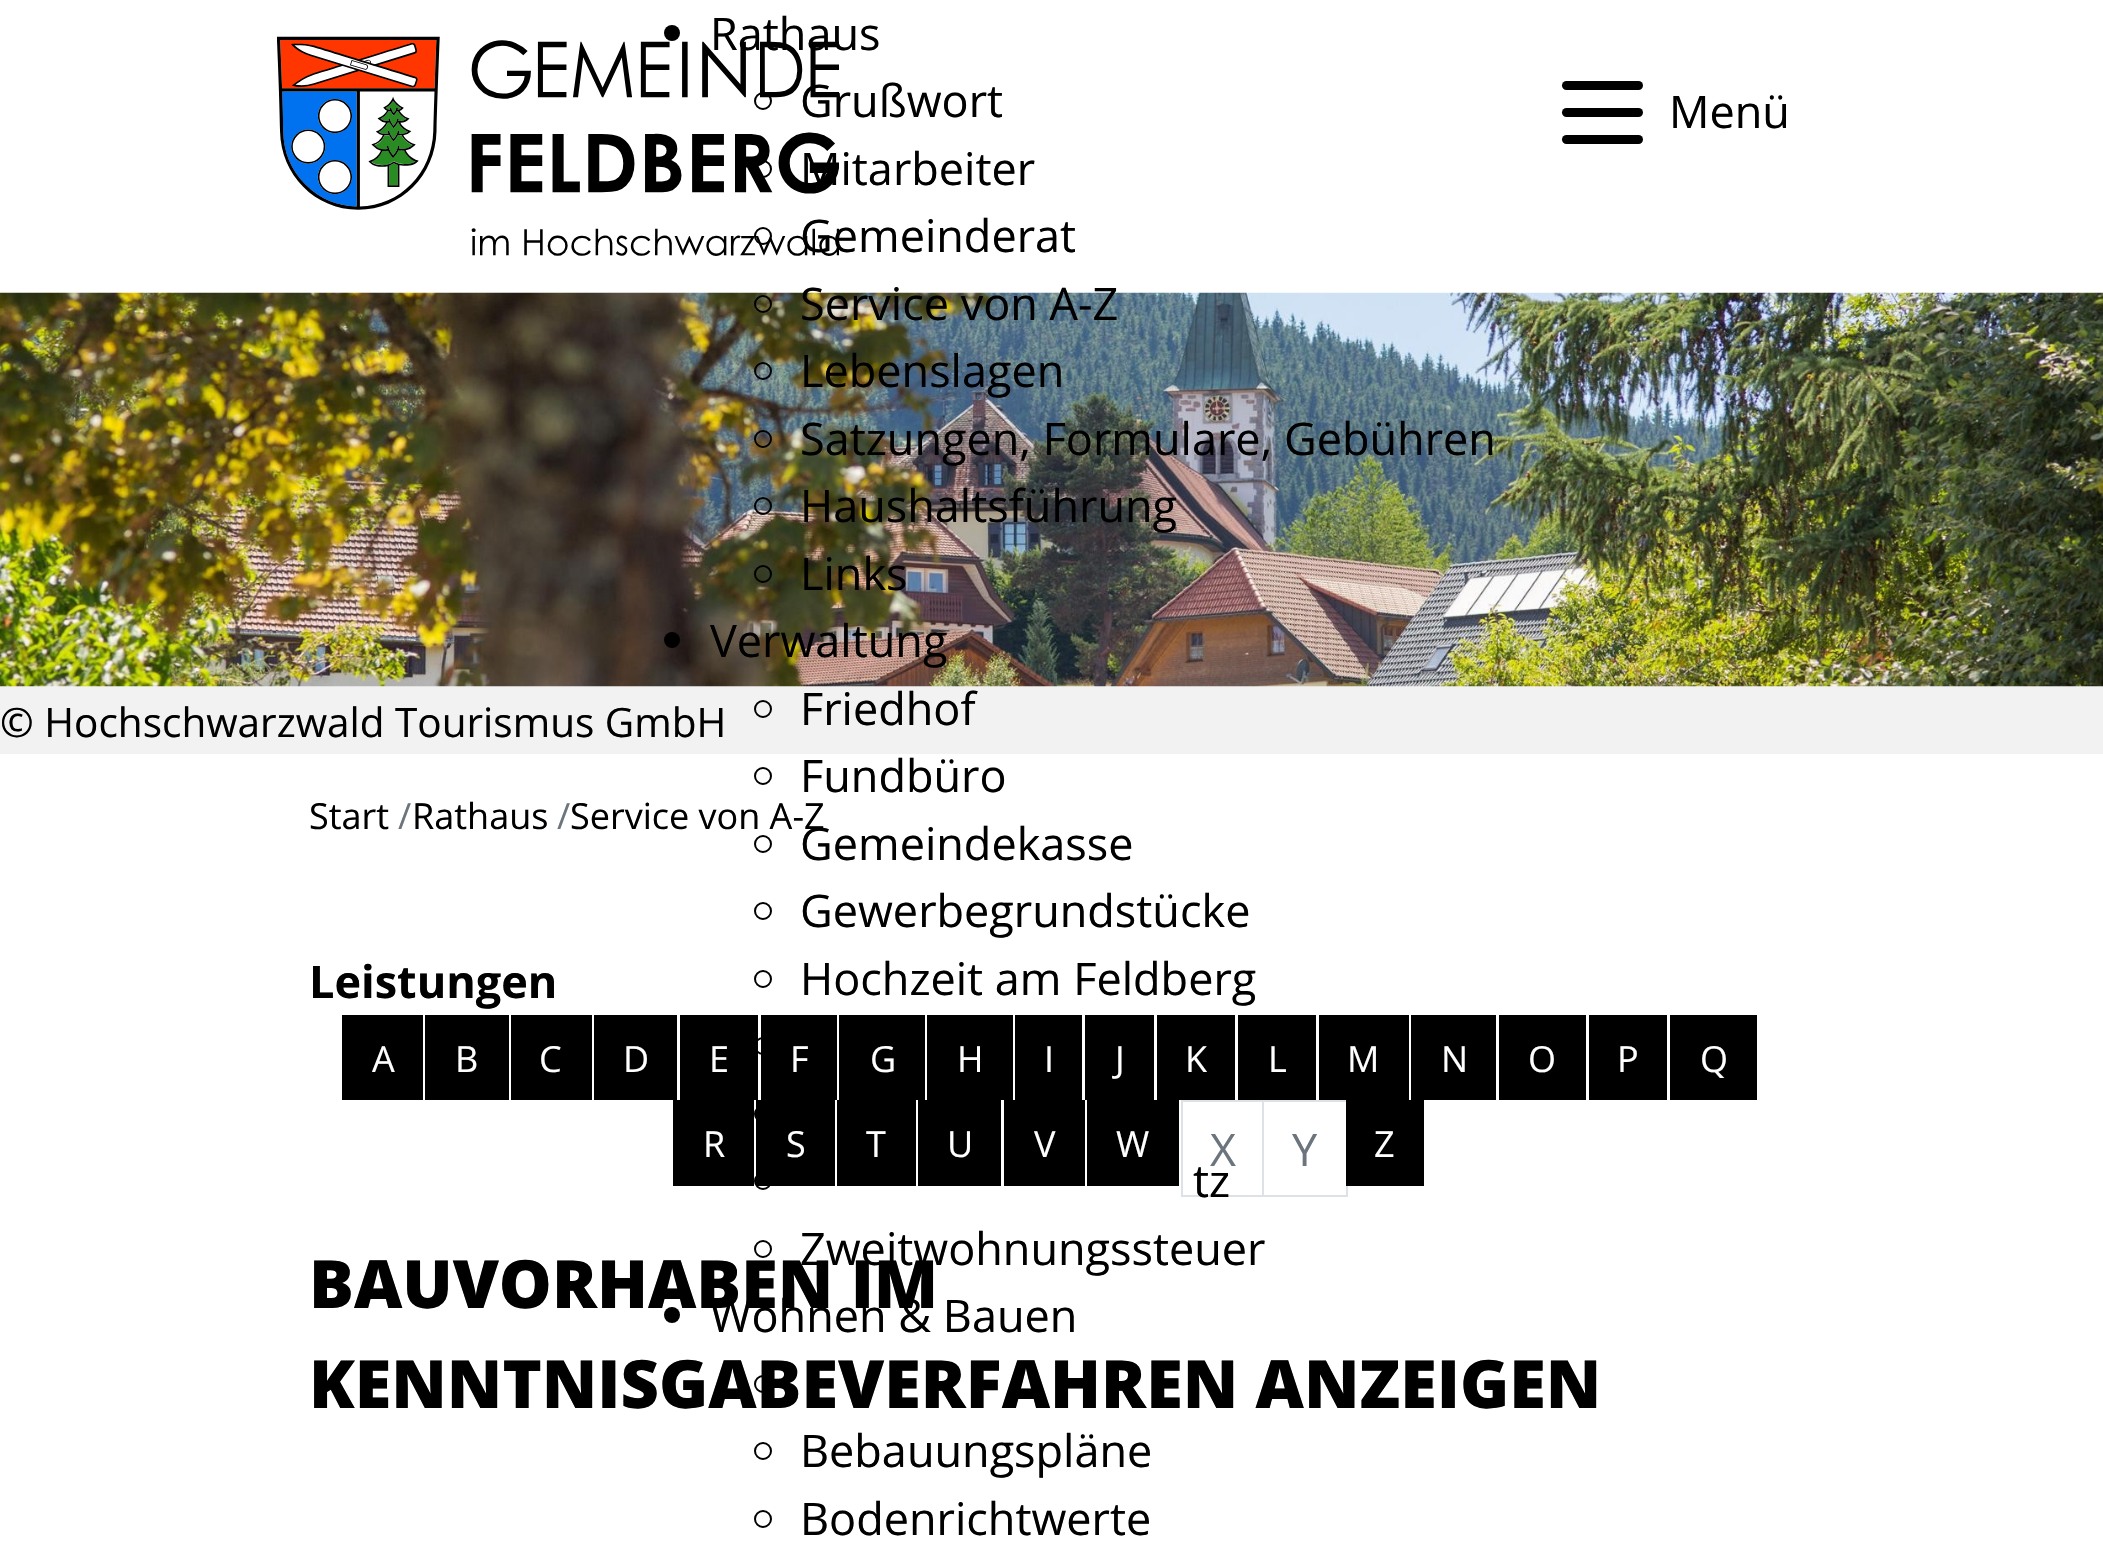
void draw(SkCanvas* canvas) {
    SkPaint paint;
    paint.setAntiAlias(true);
    canvas->clear(0xFFFFFFFF);
    paint.setColor(0xFFF2F2F2);
    canvas->drawRect(SkRect::MakeXYWH(0, 686, 2103, 68), paint);
    canvas->drawImageRect(SkImages::DeferredFromEncodedData(SkData::MakeFromFileName("img1.png")), SkRect::MakeXYWH(0, 292, 2103, 395), SkSamplingOptions());
    SkFont font1(fontMgr->matchFamilyStyle("Open Sans", SkFontStyle::Normal()), 40.5f);
    font1.setSubpixel(true);
    paint.setColor(0xFF000000);
    canvas->drawString("© Hochschwarzwald Tourismus GmbH", 0, 737, font1, paint);
    canvas->drawImageRect(SkImages::DeferredFromEncodedData(SkData::MakeFromFileName("img2.png")), SkRect::MakeXYWH(277, 36, 562, 220), SkSamplingOptions());
    canvas->drawCircle(672, 33, 8, paint);
    SkFont font2(fontMgr->matchFamilyStyle("Open Sans", SkFontStyle::Normal()), 45);
    font2.setSubpixel(true);
    canvas->drawString("Rathaus", 710, 50, font2, paint);
    paint.setStyle(SkPaint::kStroke_Style);
    paint.setStrokeWidth(2);
    canvas->drawCircle(763, 101, 8, paint);
    paint.setStyle(SkPaint::kFill_Style);
    canvas->drawString("Grußwort", 800, 117, font2, paint);
    paint.setStyle(SkPaint::kStroke_Style);
    canvas->drawCircle(763, 169, 8, paint);
    paint.setStyle(SkPaint::kFill_Style);
    canvas->drawString("Mitarbeiter", 800, 185, font2, paint);
    paint.setStyle(SkPaint::kStroke_Style);
    canvas->drawCircle(763, 236, 8, paint);
    paint.setStyle(SkPaint::kFill_Style);
    canvas->drawString("Gemeinderat", 800, 252, font2, paint);
    paint.setStyle(SkPaint::kStroke_Style);
    canvas->drawCircle(763, 304, 8, paint);
    paint.setStyle(SkPaint::kFill_Style);
    canvas->drawString("Service von A-Z", 800, 320, font2, paint);
    paint.setStyle(SkPaint::kStroke_Style);
    canvas->drawCircle(763, 371, 8, paint);
    paint.setStyle(SkPaint::kFill_Style);
    canvas->drawString("Lebenslagen", 800, 387, font2, paint);
    paint.setStyle(SkPaint::kStroke_Style);
    canvas->drawCircle(763, 439, 8, paint);
    paint.setStyle(SkPaint::kFill_Style);
    canvas->drawString("Satzungen, Formulare, Gebühren", 800, 455, font2, paint);
    paint.setStyle(SkPaint::kStroke_Style);
    canvas->drawCircle(763, 506, 8, paint);
    paint.setStyle(SkPaint::kFill_Style);
    canvas->drawString("Haushaltsführung", 800, 522, font2, paint);
    paint.setStyle(SkPaint::kStroke_Style);
    canvas->drawCircle(763, 574, 8, paint);
    paint.setStyle(SkPaint::kFill_Style);
    canvas->drawString("Links", 800, 590, font2, paint);
    canvas->drawCircle(672, 640, 8, paint);
    canvas->drawString("Verwaltung", 710, 657, font2, paint);
    paint.setStyle(SkPaint::kStroke_Style);
    canvas->drawCircle(763, 709, 8, paint);
    paint.setStyle(SkPaint::kFill_Style);
    canvas->drawString("Friedhof", 800, 725, font2, paint);
    paint.setStyle(SkPaint::kStroke_Style);
    canvas->drawCircle(763, 776, 8, paint);
    paint.setStyle(SkPaint::kFill_Style);
    canvas->drawString("Fundbüro", 800, 792, font2, paint);
    paint.setStyle(SkPaint::kStroke_Style);
    canvas->drawCircle(763, 844, 8, paint);
    paint.setStyle(SkPaint::kFill_Style);
    canvas->drawString("Gemeindekasse", 800, 860, font2, paint);
    paint.setStyle(SkPaint::kStroke_Style);
    canvas->drawCircle(763, 911, 8, paint);
    paint.setStyle(SkPaint::kFill_Style);
    canvas->drawString("Gewerbegrundstücke", 800, 927, font2, paint);
    paint.setStyle(SkPaint::kStroke_Style);
    canvas->drawCircle(763, 979, 8, paint);
    paint.setStyle(SkPaint::kFill_Style);
    canvas->drawString("Hochzeit am Feldberg", 800, 995, font2, paint);
    canvas->drawRect(SkRect::MakeXYWH(680, 1015, 78, 85), paint);
    canvas->drawRect(SkRect::MakeXYWH(761, 1015, 76, 85), paint);
    paint.setStyle(SkPaint::kStroke_Style);
    canvas->drawCircle(763, 1046, 8, paint);
    paint.setStyle(SkPaint::kFill_Style);
    canvas->drawRect(SkRect::MakeXYWH(756, 1100, 79, 86), paint);
    paint.setStyle(SkPaint::kStroke_Style);
    canvas->drawCircle(763, 1114, 8, paint);
    canvas->drawCircle(763, 1181, 8, paint);
    paint.setColor(0xFFDEE2E6);
    canvas->drawRect(SkRect::MakeXYWH(1182, 1101, 82, 95), paint);
    paint.setStyle(SkPaint::kFill_Style);
    paint.setColor(0xFF000000);
    canvas->drawString("tz", 1193, 1197, font2, paint);
    paint.setStyle(SkPaint::kStroke_Style);
    canvas->drawCircle(763, 1249, 8, paint);
    paint.setStyle(SkPaint::kFill_Style);
    canvas->drawString("Zweitwohnungssteuer", 800, 1265, font2, paint);
    canvas->drawCircle(672, 1315, 8, paint);
    canvas->drawString("Wohnen & Bauen", 710, 1332, font2, paint);
    paint.setStyle(SkPaint::kStroke_Style);
    canvas->drawCircle(763, 1384, 8, paint);
    canvas->drawCircle(763, 1451, 8, paint);
    paint.setStyle(SkPaint::kFill_Style);
    canvas->drawString("Bebauungspläne", 800, 1467, font2, paint);
    paint.setStyle(SkPaint::kStroke_Style);
    canvas->drawCircle(763, 1519, 8, paint);
    paint.setStyle(SkPaint::kFill_Style);
    canvas->drawString("Bodenrichtwerte", 800, 1535, font2, paint);
    canvas->drawRoundRect(SkRect::MakeXYWH(1562, 81, 81, 9), 4.5f, 4.5f, paint);
    canvas->drawRoundRect(SkRect::MakeXYWH(1562, 108, 81, 9), 4.5f, 4.5f, paint);
    canvas->drawString("Menü", 1669, 128, font2, paint);
    canvas->drawRoundRect(SkRect::MakeXYWH(1562, 135, 81, 9), 4.5f, 4.5f, paint);
    SkFont font3(fontMgr->matchFamilyStyle("Open Sans", SkFontStyle::Normal()), 36);
    font3.setSubpixel(true);
    canvas->drawString("Start", 309, 829, font3, paint);
    paint.setColor(0xFF6C757D);
    canvas->drawString("/", 398, 829, font3, paint);
    paint.setColor(0xFF000000);
    canvas->drawString("Rathaus", 412, 829, font3, paint);
    paint.setColor(0xFF6C757D);
    canvas->drawString("/", 557, 829, font3, paint);
    paint.setColor(0xFF000000);
    canvas->drawString("Service von A-Z", 570, 829, font3, paint);
    SkFont font4(fontMgr->matchFamilyStyle("Open Sans", SkFontStyle::Bold()), 45);
    font4.setSubpixel(true);
    canvas->drawString("Leistungen", 309, 998, font4, paint);
    canvas->drawRect(SkRect::MakeXYWH(342, 1015, 81, 85), paint);
    paint.setColor(0xFFFFFFFF);
    canvas->drawString("A", 372, 1072, font3, paint);
    paint.setColor(0xFF000000);
    canvas->drawRect(SkRect::MakeXYWH(425, 1015, 84, 85), paint);
    paint.setColor(0xFFFFFFFF);
    canvas->drawString("B", 455, 1072, font3, paint);
    paint.setColor(0xFF000000);
    canvas->drawRect(SkRect::MakeXYWH(511, 1015, 81, 85), paint);
    paint.setColor(0xFFFFFFFF);
    canvas->drawString("C", 539, 1072, font3, paint);
    paint.setColor(0xFF000000);
    canvas->drawRect(SkRect::MakeXYWH(594, 1015, 83, 85), paint);
    paint.setColor(0xFFFFFFFF);
    canvas->drawString("D", 623, 1072, font3, paint);
    canvas->drawString("E", 709, 1072, font3, paint);
    canvas->drawString("F", 790, 1072, font3, paint);
    paint.setColor(0xFF000000);
    canvas->drawRect(SkRect::MakeXYWH(839, 1015, 86, 85), paint);
    paint.setColor(0xFFFFFFFF);
    canvas->drawString("G", 870, 1072, font3, paint);
    paint.setColor(0xFF000000);
    canvas->drawRect(SkRect::MakeXYWH(927, 1015, 86, 85), paint);
    paint.setColor(0xFFFFFFFF);
    canvas->drawString("H", 957, 1072, font3, paint);
    paint.setColor(0xFF000000);
    canvas->drawRect(SkRect::MakeXYWH(1015, 1015, 67, 85), paint);
    paint.setColor(0xFFFFFFFF);
    canvas->drawString("I", 1044, 1072, font3, paint);
    paint.setColor(0xFF000000);
    canvas->drawRect(SkRect::MakeXYWH(1085, 1015, 69, 85), paint);
    paint.setColor(0xFFFFFFFF);
    canvas->drawString("J", 1115, 1072, font3, paint);
    paint.setColor(0xFF000000);
    canvas->drawRect(SkRect::MakeXYWH(1157, 1015, 78, 85), paint);
    paint.setColor(0xFFFFFFFF);
    canvas->drawString("K", 1185, 1072, font3, paint);
    paint.setColor(0xFF000000);
    canvas->drawRect(SkRect::MakeXYWH(1238, 1015, 78, 85), paint);
    paint.setColor(0xFFFFFFFF);
    canvas->drawString("L", 1268, 1072, font3, paint);
    paint.setColor(0xFF000000);
    canvas->drawRect(SkRect::MakeXYWH(1319, 1015, 90, 85), paint);
    paint.setColor(0xFFFFFFFF);
    canvas->drawString("M", 1347, 1072, font3, paint);
    paint.setColor(0xFF000000);
    canvas->drawRect(SkRect::MakeXYWH(1411, 1015, 85, 85), paint);
    paint.setColor(0xFFFFFFFF);
    canvas->drawString("N", 1441, 1072, font3, paint);
    paint.setColor(0xFF000000);
    canvas->drawRect(SkRect::MakeXYWH(1499, 1015, 87, 85), paint);
    paint.setColor(0xFFFFFFFF);
    canvas->drawString("O", 1528, 1072, font3, paint);
    paint.setColor(0xFF000000);
    canvas->drawRect(SkRect::MakeXYWH(1589, 1015, 78, 85), paint);
    paint.setColor(0xFFFFFFFF);
    canvas->drawString("P", 1617, 1072, font3, paint);
    paint.setColor(0xFF000000);
    canvas->drawRect(SkRect::MakeXYWH(1670, 1015, 87, 85), paint);
    paint.setColor(0xFFFFFFFF);
    canvas->drawString("Q", 1700, 1072, font3, paint);
    paint.setColor(0xFF000000);
    canvas->drawRect(SkRect::MakeXYWH(673, 1100, 81, 86), paint);
    paint.setColor(0xFFFFFFFF);
    canvas->drawString("R", 703, 1157, font3, paint);
    canvas->drawString("S", 786, 1157, font3, paint);
    paint.setColor(0xFF000000);
    canvas->drawRect(SkRect::MakeXYWH(837, 1100, 79, 86), paint);
    paint.setColor(0xFFFFFFFF);
    canvas->drawString("T", 866, 1157, font3, paint);
    paint.setColor(0xFF000000);
    canvas->drawRect(SkRect::MakeXYWH(918, 1100, 83, 86), paint);
    paint.setColor(0xFFFFFFFF);
    canvas->drawString("U", 947, 1157, font3, paint);
    paint.setColor(0xFF000000);
    canvas->drawRect(SkRect::MakeXYWH(1004, 1100, 81, 86), paint);
    paint.setColor(0xFFFFFFFF);
    canvas->drawString("V", 1034, 1157, font3, paint);
    paint.setColor(0xFF000000);
    canvas->drawRect(SkRect::MakeXYWH(1087, 1100, 92, 86), paint);
    paint.setColor(0xFFFFFFFF);
    canvas->drawString("W", 1116, 1157, font3, paint);
    paint.setColor(0xFF6C757D);
    canvas->drawString("X", 1210, 1166, font2, paint);
    paint.setColor(0xFFFFFFFF);
    canvas->drawRect(SkRect::MakeXYWH(1264, 1102, 1, 93), paint);
    paint.setStyle(SkPaint::kStroke_Style);
    paint.setColor(0xFFDEE2E6);
    canvas->drawRect(SkRect::MakeXYWH(1263, 1101, 84, 95), paint);
    paint.setStyle(SkPaint::kFill_Style);
    paint.setColor(0xFF6C757D);
    canvas->drawString("Y", 1292, 1166, font2, paint);
    paint.setColor(0xFF000000);
    canvas->drawRect(SkRect::MakeXYWH(1346, 1100, 78, 86), paint);
    paint.setColor(0xFFFFFFFF);
    canvas->drawString("Z", 1374, 1157, font3, paint);
    SkFont font5(fontMgr->matchFamilyStyle("Open Sans", SkFontStyle(800, SkFontStyle::kNormal_Width, SkFontStyle::kUpright_Slant)), 66.6f);
    font5.setSubpixel(true);
    paint.setColor(0xFF000000);
    canvas->drawString("BAUVORHABEN IM", 309, 1308, font5, paint);
    canvas->drawString("KENNTNISGABEVERFAHREN ANZEIGEN", 309, 1408, font5, paint);
}
